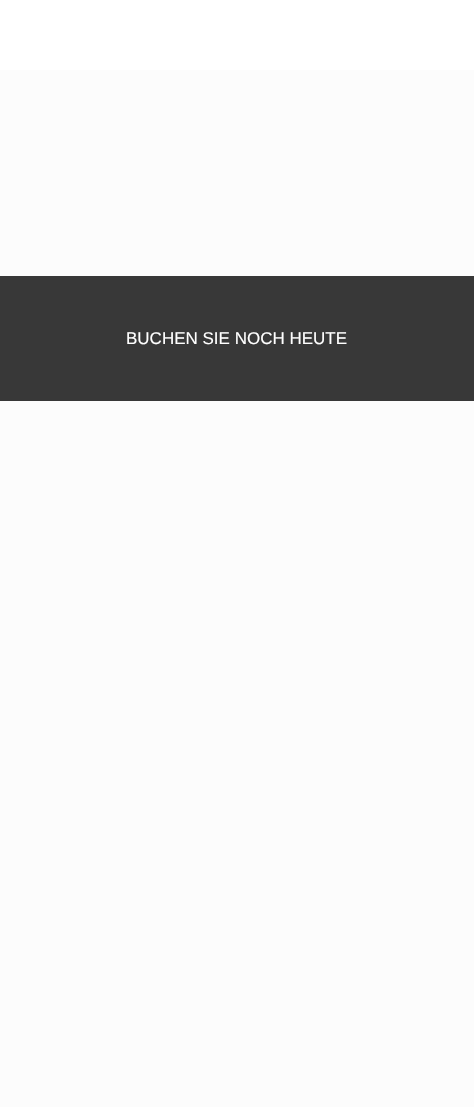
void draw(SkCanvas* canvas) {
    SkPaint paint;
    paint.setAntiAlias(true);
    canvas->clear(0xFFFCFCFC);
    paint.setColor(0xFFFFFFFF);
    canvas->drawRect(SkRect::MakeXYWH(0, 0, 474, 70), paint);
    paint.setColor(0xFF383838);
    canvas->drawRect(SkRect::MakeXYWH(0, 276, 474, 125), paint);
    SkFont font1(fontMgr->matchFamilyStyle("Liberation Sans", SkFontStyle::Normal()), 17);
    font1.setSubpixel(true);
    paint.setColor(0xFFFFFFFF);
    canvas->drawString("BUCHEN SIE NOCH HEUTE", 126, 344, font1, paint);
}
